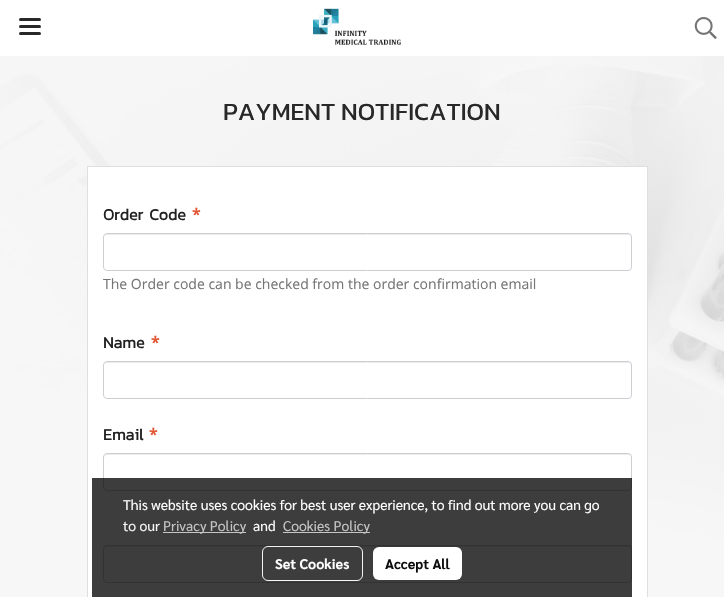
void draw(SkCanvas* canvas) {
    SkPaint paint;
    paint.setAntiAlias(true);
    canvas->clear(0xFFFFFFFF);
    canvas->drawImageRect(SkImages::DeferredFromEncodedData(SkData::MakeFromFileName("img1.png")), SkRect::MakeXYWH(0, 56, 724, 541), SkSamplingOptions());
    paint.setColor(0xFF282828);
    canvas->drawRoundRect(SkRect::MakeXYWH(19, 25, 22, 3), 1.5f, 1.5f, paint);
    canvas->drawRoundRect(SkRect::MakeXYWH(19, 18, 22, 3), 1.5f, 1.5f, paint);
    canvas->drawRoundRect(SkRect::MakeXYWH(19, 32, 22, 3), 1.5f, 1.5f, paint);
    canvas->drawImageRect(SkImages::DeferredFromEncodedData(SkData::MakeFromFileName("img2.png")), SkRect::MakeXYWH(313, 8, 88, 37), SkSamplingOptions());
    canvas->drawImageRect(SkImages::DeferredFromEncodedData(SkData::MakeFromFileName("img3.png")), SkRect::MakeXYWH(694, 17, 23, 22), SkSamplingOptions());
    SkFont font1(fontMgr->matchFamilyStyle("Kanit", SkFontStyle::Normal()), 25);
    font1.setSubpixel(true);
    canvas->drawString("PAYMENT NOTIFICATION", 223, 120, font1, paint);
    paint.setColor(0xFFFFFFFF);
    canvas->drawRect(SkRect::MakeXYWH(87.5f, 166.5f, 560, 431), paint);
    paint.setStyle(SkPaint::kStroke_Style);
    paint.setStrokeWidth(1);
    paint.setColor(0xFFDFDFDF);
    canvas->drawRect(SkRect::MakeXYWH(87.5f, 166.5f, 560, 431), paint);
    SkFont font2(fontMgr->matchFamilyStyle("Kanit", SkFontStyle::Bold()), 16);
    font2.setSubpixel(true);
    paint.setStyle(SkPaint::kFill_Style);
    paint.setColor(0xFF212121);
    canvas->drawString("Order Code", 103, 220, font2, paint);
    SkFont font3(fontMgr->matchFamilyStyle("Open Sans", SkFontStyle::Bold()), 16);
    font3.setSubpixel(true);
    paint.setColor(0xFFE45735);
    canvas->drawString("*", 192, 220, font3, paint);
    paint.setColor(0xFFECECEC);
    canvas->drawPath(SkPathBuilder().moveTo(107, 235).lineTo(628, 235).cubicTo(630, 235, 631, 236, 631, 238).lineTo(630, 235).lineTo(628, 234).lineTo(107, 234).cubicTo(105, 234, 104, 236, 104, 238).cubicTo(104, 236, 105, 235, 107, 235).close().detach(), paint);
    paint.setStyle(SkPaint::kStroke_Style);
    paint.setColor(0xFFCDCED2);
    canvas->drawRoundRect(SkRect::MakeXYWH(103.5f, 233.5f, 528, 37), 3.5f, 3.5f, paint);
    SkFont font4(fontMgr->matchFamilyStyle("Open Sans", SkFontStyle::Normal()), 14);
    font4.setSubpixel(true);
    paint.setStyle(SkPaint::kFill_Style);
    paint.setColor(0xFF757575);
    canvas->drawString("The Order code can be checked from the order confirmation email", 103, 289, font4, paint);
    paint.setColor(0xFF212121);
    canvas->drawString("Name", 103, 348, font2, paint);
    paint.setColor(0xFFE45735);
    canvas->drawString("*", 151, 348, font3, paint);
    paint.setColor(0xFFECECEC);
    canvas->drawPath(SkPathBuilder().moveTo(107, 363).lineTo(628, 363).cubicTo(630, 363, 631, 364, 631, 366).lineTo(630, 363).lineTo(628, 362).lineTo(107, 362).cubicTo(105, 362, 104, 364, 104, 366).cubicTo(104, 364, 105, 363, 107, 363).close().detach(), paint);
    paint.setStyle(SkPaint::kStroke_Style);
    paint.setColor(0xFFCDCED2);
    canvas->drawRoundRect(SkRect::MakeXYWH(103.5f, 361.5f, 528, 37), 3.5f, 3.5f, paint);
    paint.setStyle(SkPaint::kFill_Style);
    paint.setColor(0xFF212121);
    canvas->drawString("Email", 103, 440, font2, paint);
    paint.setColor(0xFFE45735);
    canvas->drawString("*", 149, 440, font3, paint);
    paint.setColor(0xFFECECEC);
    canvas->drawPath(SkPathBuilder().moveTo(107, 455).lineTo(628, 455).cubicTo(630, 455, 631, 456, 631, 458).lineTo(630, 455).lineTo(628, 454).lineTo(107, 454).cubicTo(105, 454, 104, 456, 104, 458).cubicTo(104, 456, 105, 455, 107, 455).close().detach(), paint);
    paint.setStyle(SkPaint::kStroke_Style);
    paint.setColor(0xFFCDCED2);
    canvas->drawRoundRect(SkRect::MakeXYWH(103.5f, 453.5f, 528, 37), 3.5f, 3.5f, paint);
    paint.setStyle(SkPaint::kFill_Style);
    paint.setColor(0xFFECECEC);
    canvas->drawPath(SkPathBuilder().moveTo(107, 547).lineTo(628, 547).cubicTo(630, 547, 631, 548, 631, 550).lineTo(630, 547).lineTo(628, 546).lineTo(107, 546).cubicTo(105, 546, 104, 548, 104, 550).cubicTo(104, 548, 105, 547, 107, 547).close().detach(), paint);
    paint.setStyle(SkPaint::kStroke_Style);
    paint.setColor(0xFFCDCED2);
    canvas->drawRoundRect(SkRect::MakeXYWH(103.5f, 545.5f, 528, 37), 3.5f, 3.5f, paint);
    paint.setStyle(SkPaint::kFill_Style);
    paint.setColor(0xC2000000);
    canvas->drawRect(SkRect::MakeXYWH(92, 478, 540, 119), paint);
    SkFont font5(fontMgr->matchFamilyStyle("Sarabun", SkFontStyle::Normal()), 14);
    font5.setSubpixel(true);
    paint.setColor(0xFFFFFFFF);
    canvas->drawString("This website uses cookies for best user experience, to find out more you can go", 123, 510, font5, paint);
    paint.setColor(0xFFF5F5F5);
    canvas->drawString("to our", 123, 531, font5, paint);
    paint.setColor(0xFFC5C5C5);
    canvas->drawRect(SkRect::MakeXYWH(163, 532, 83, 1), paint);
    canvas->drawString("Privacy Policy", 163, 531, font5, paint);
    paint.setColor(0xFFFFFFFF);
    canvas->drawString("and", 253, 531, font5, paint);
    paint.setColor(0xFFC5C5C5);
    canvas->drawRect(SkRect::MakeXYWH(283, 532, 87, 1), paint);
    canvas->drawString("Cookies Policy", 283, 531, font5, paint);
    paint.setStyle(SkPaint::kStroke_Style);
    paint.setColor(0xF2FFFFFF);
    canvas->drawRoundRect(SkRect::MakeXYWH(262.5f, 546.5f, 100, 34), 5.5f, 5.5f, paint);
    SkFont font6(fontMgr->matchFamilyStyle("Sarabun", SkFontStyle::Bold()), 14);
    font6.setSubpixel(true);
    paint.setStyle(SkPaint::kFill_Style);
    paint.setColor(0xFFFFFFFF);
    canvas->drawString("Set Cookies", 275, 569, font6, paint);
    canvas->drawRoundRect(SkRect::MakeXYWH(373, 547, 89, 33), 6, 6, paint);
    paint.setColor(0xFF0D0D0D);
    canvas->drawString("Accept All", 385, 569, font6, paint);
}
